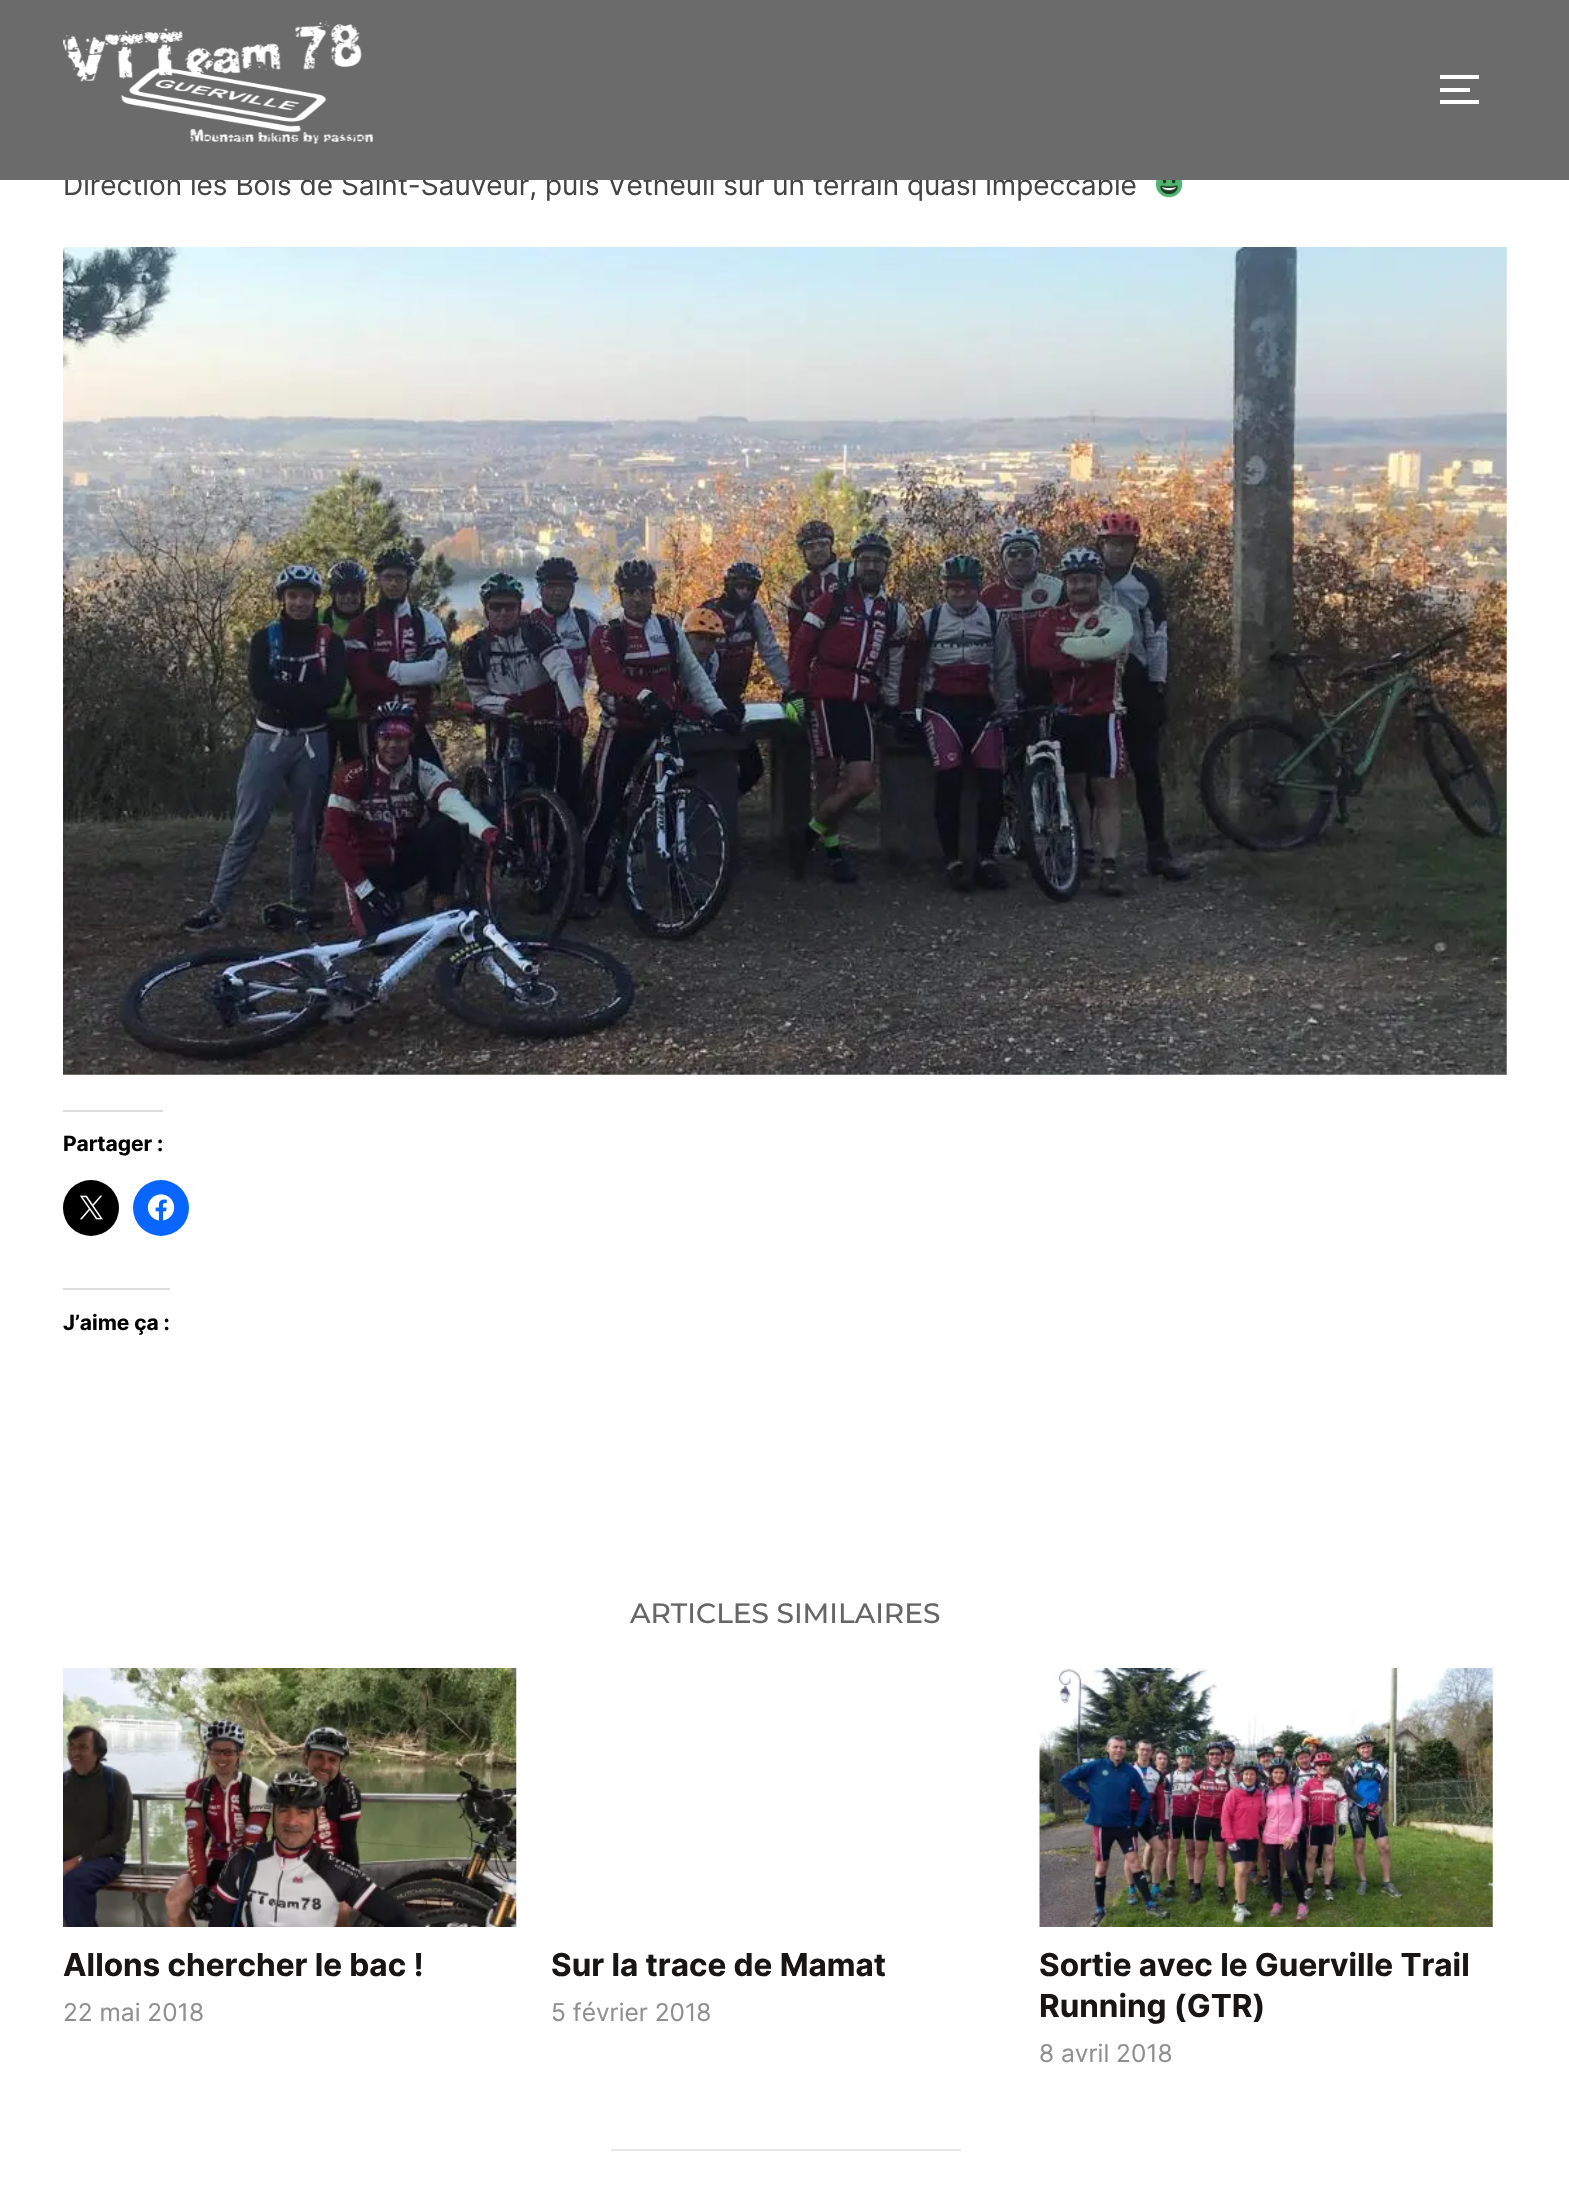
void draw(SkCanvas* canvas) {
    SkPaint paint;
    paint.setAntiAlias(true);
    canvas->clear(0xFFFFFFFF);
    SkFont font1(fontMgr->matchFamilyStyle("Inter", SkFontStyle::Normal()), 28);
    font1.setSubpixel(true);
    paint.setColor(0xFF444444);
    canvas->drawString("Direction les Bois de Saint-Sauveur, puis Vétheuil sur un terrain quasi impeccable", 63, 195, font1, paint);
    paint.setColor(0xFF6B6B6B);
    canvas->drawRect(SkRect::MakeXYWH(0, 0, 1569, 180), paint);
    canvas->drawImageRect(SkImages::DeferredFromEncodedData(SkData::MakeFromFileName("img1.png")), SkRect::MakeXYWH(63, 21, 310, 123), SkSamplingOptions());
    paint.setColor(0xFFFFFFFF);
    canvas->drawRect(SkRect::MakeXYWH(1440, 75, 39, 4), paint);
    canvas->drawRect(SkRect::MakeXYWH(1440, 88, 30, 4), paint);
    canvas->drawRect(SkRect::MakeXYWH(1440, 100, 39, 4), paint);
    canvas->drawImageRect(SkImages::DeferredFromEncodedData(SkData::MakeFromFileName("img2.png")), SkRect::MakeXYWH(1155, 180, 28, 18), SkSamplingOptions());
    canvas->drawImageRect(SkImages::DeferredFromEncodedData(SkData::MakeFromFileName("img3.png")), SkRect::MakeXYWH(63, 247, 1444, 828), SkSamplingOptions());
    paint.setColor(0xFFDCDCDE);
    canvas->drawRect(SkRect::MakeXYWH(63, 1110, 100, 2), paint);
    SkFont font2(fontMgr->matchFamilyStyle("Inter", SkFontStyle::Bold()), 21);
    font2.setSubpixel(true);
    paint.setColor(0xFF000000);
    canvas->drawString("Partager :", 63, 1151, font2, paint);
    canvas->drawCircle(91, 1208, 28, paint);
    canvas->drawImageRect(SkImages::DeferredFromEncodedData(SkData::MakeFromFileName("img4.png")), SkRect::MakeXYWH(80, 1195, 23, 25), SkSamplingOptions());
    paint.setColor(0xFF0866FF);
    canvas->drawCircle(161, 1208, 28, paint);
    canvas->drawImageRect(SkImages::DeferredFromEncodedData(SkData::MakeFromFileName("img5.png")), SkRect::MakeXYWH(147, 1194, 28, 27), SkSamplingOptions());
    paint.setColor(0xFFDCDCDE);
    canvas->drawRect(SkRect::MakeXYWH(63, 1288, 107, 2), paint);
    paint.setColor(0xFF000000);
    canvas->drawString("J’aime ça :", 63, 1330, font2, paint);
    SkFont font3(fontMgr->matchFamilyStyle("Montserrat", SkFontStyle(500, SkFontStyle::kNormal_Width, SkFontStyle::kUpright_Slant)), 28);
    font3.setSubpixel(true);
    paint.setColor(0xFF666666);
    canvas->drawString("ARTICLES SIMILAIRES", 630, 1623, font3, paint);
    canvas->drawImageRect(SkImages::DeferredFromEncodedData(SkData::MakeFromFileName("img6.png")), SkRect::MakeXYWH(63, 1668, 454, 259), SkSamplingOptions());
    SkFont font4(fontMgr->matchFamilyStyle("Inter", SkFontStyle::Bold()), 31.5f);
    font4.setSubpixel(true);
    paint.setColor(0xFF171615);
    canvas->drawString("Allons chercher le bac !", 63, 1976, font4, paint);
    SkFont font5(fontMgr->matchFamilyStyle("Inter", SkFontStyle::Normal()), 24.5f);
    font5.setSubpixel(true);
    paint.setColor(0xFF8F8F8F);
    canvas->drawString("22 mai 2018", 63, 2021, font5, paint);
    paint.setColor(0xFF171615);
    canvas->drawString("Sur la trace de Mamat", 551, 1976, font4, paint);
    paint.setColor(0xFF8F8F8F);
    canvas->drawString("5 février 2018", 551, 2021, font5, paint);
    canvas->drawImageRect(SkImages::DeferredFromEncodedData(SkData::MakeFromFileName("img7.png")), SkRect::MakeXYWH(1039, 1668, 454, 259), SkSamplingOptions());
    paint.setColor(0xFF171615);
    canvas->drawString("Sortie avec le Guerville Trail", 1039, 1976, font4, paint);
    canvas->drawString("Running (GTR)", 1039, 2017, font4, paint);
    paint.setColor(0xFF8F8F8F);
    canvas->drawString("8 avril 2018", 1039, 2062, font5, paint);
    paint.setColor(0xFFE6E6E6);
    canvas->drawRect(SkRect::MakeXYWH(611, 2149, 350, 2), paint);
}
